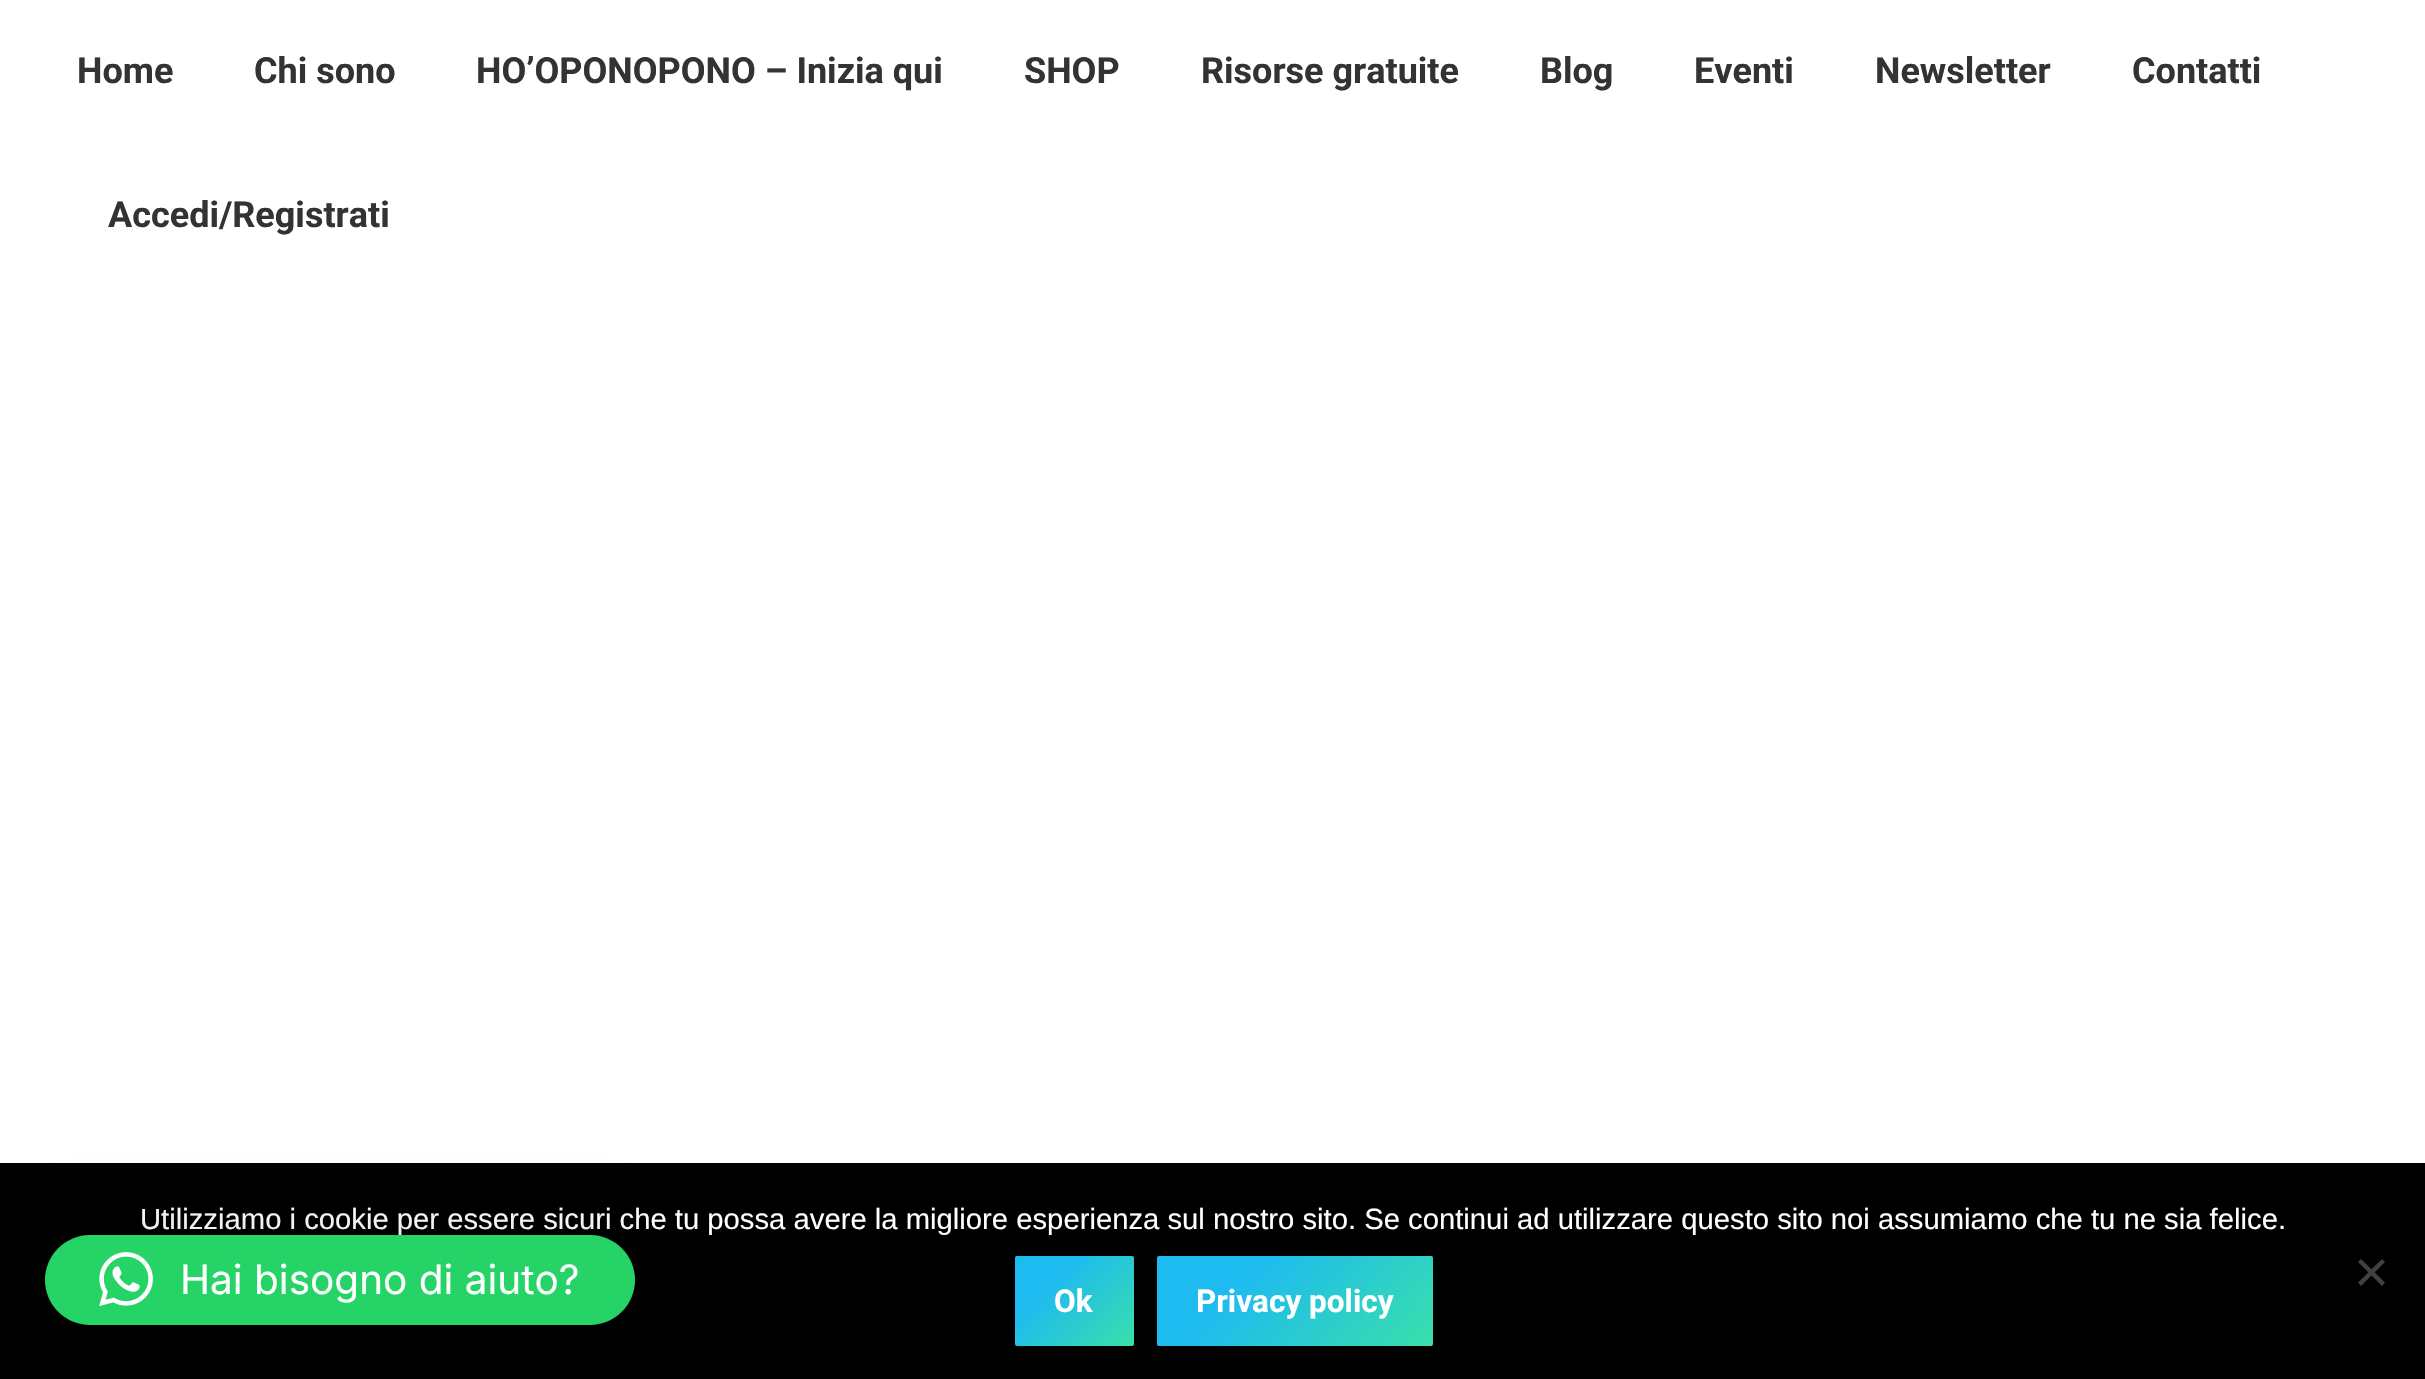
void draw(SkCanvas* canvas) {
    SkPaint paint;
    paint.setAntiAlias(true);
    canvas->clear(0xFFFFFFFF);
    SkFont font1(fontMgr->matchFamilyStyle("Roboto", SkFontStyle::Bold()), 36);
    font1.setSubpixel(true);
    paint.setColor(0xFF333333);
    canvas->drawString("Home", 77, 83, font1, paint);
    canvas->drawString("Chi sono", 254, 83, font1, paint);
    canvas->drawString("HO’OPONOPONO – Inizia qui", 476, 83, font1, paint);
    canvas->drawString("SHOP", 1024, 83, font1, paint);
    canvas->drawString("Risorse gratuite", 1201, 83, font1, paint);
    canvas->drawString("Blog", 1540, 83, font1, paint);
    canvas->drawString("Eventi", 1694, 83, font1, paint);
    canvas->drawString("Newsletter", 1875, 83, font1, paint);
    canvas->drawString("Contatti", 2132, 83, font1, paint);
    canvas->drawString("Accedi/Registrati", 108, 227, font1, paint);
    paint.setColor(0xFF000000);
    canvas->drawRect(SkRect::MakeXYWH(0, 1163, 2425, 216), paint);
    SkFont font2(fontMgr->matchFamilyStyle("Liberation Sans", SkFontStyle::Normal()), 29.25f);
    font2.setSubpixel(true);
    paint.setColor(0xFFFFFFFF);
    canvas->drawString("Utilizziamo i cookie per essere sicuri che tu possa avere la migliore esperienza sul nostro sito. Se continui ad utilizzare questo sito noi assumiamo che tu ne sia felice.", 140, 1229, font2, paint);
    paint.setColor(0xFF404040);
    canvas->drawPath(SkPathBuilder().moveTo(2382, 1259).lineTo(2385, 1262).lineTo(2361, 1286).lineTo(2358, 1282.5f).close().detach(), paint);
    canvas->drawPath(SkPathBuilder().moveTo(2358, 1262).lineTo(2361, 1259).lineTo(2385, 1282.5f).lineTo(2382, 1286).close().detach(), paint);
    {
        const SkColor colors[] = {0xFF1EBBF0, 0xFF39DFAA};
        const float stops[] = {0.3f, 1};
        const SkPoint ends[] = {{1022, 1248}, {1127, 1353}};
        paint.setShader(SkGradientShader::MakeLinear(ends, colors, stops, 2, SkTileMode::kClamp));
        paint.setAlpha(255);
    }
    canvas->drawRoundRect(SkRect::MakeXYWH(1015, 1256, 119, 90), 2, 2, paint);
    SkFont font3(fontMgr->matchFamilyStyle("Roboto", SkFontStyle::Bold()), 31.5f);
    font3.setSubpixel(true);
    paint.setShader(nullptr);
    paint.setColor(0xFFFFFFFF);
    canvas->drawString("Ok", 1054, 1312, font3, paint);
    {
        const SkColor colors[] = {0xFF1EBBF0, 0xFF39DFAA};
        const float stops[] = {0.3f, 1};
        const SkPoint ends[] = {{1203, 1209}, {1387, 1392}};
        paint.setShader(SkGradientShader::MakeLinear(ends, colors, stops, 2, SkTileMode::kClamp));
        paint.setAlpha(255);
    }
    canvas->drawRoundRect(SkRect::MakeXYWH(1157, 1256, 276, 90), 2, 2, paint);
    paint.setShader(nullptr);
    paint.setColor(0xFFFFFFFF);
    canvas->drawString("Privacy policy", 1196, 1312, font3, paint);
    paint.setColor(0x29000000);
    paint.setMaskFilter(SkMaskFilter::MakeBlur(kNormal_SkBlurStyle, 36));
    canvas->drawRoundRect(SkRect::MakeXYWH(45, 1240, 590, 90), 45, 45, paint);
    paint.setMaskFilter(nullptr);
    paint.setColor(0xFF25D366);
    canvas->drawRoundRect(SkRect::MakeXYWH(45, 1235, 590, 90), 45, 45, paint);
    canvas->drawImageRect(SkImages::DeferredFromEncodedData(SkData::MakeFromFileName("img1.png")), SkRect::MakeXYWH(99, 1252, 54, 55), SkSamplingOptions());
    SkFont font4(fontMgr->matchFamilyStyle("Inter", SkFontStyle::Normal()), 40.5f);
    font4.setSubpixel(true);
    paint.setColor(0xFFFFFFFF);
    canvas->drawString("Hai bisogno di aiuto?", 180, 1294, font4, paint);
}
